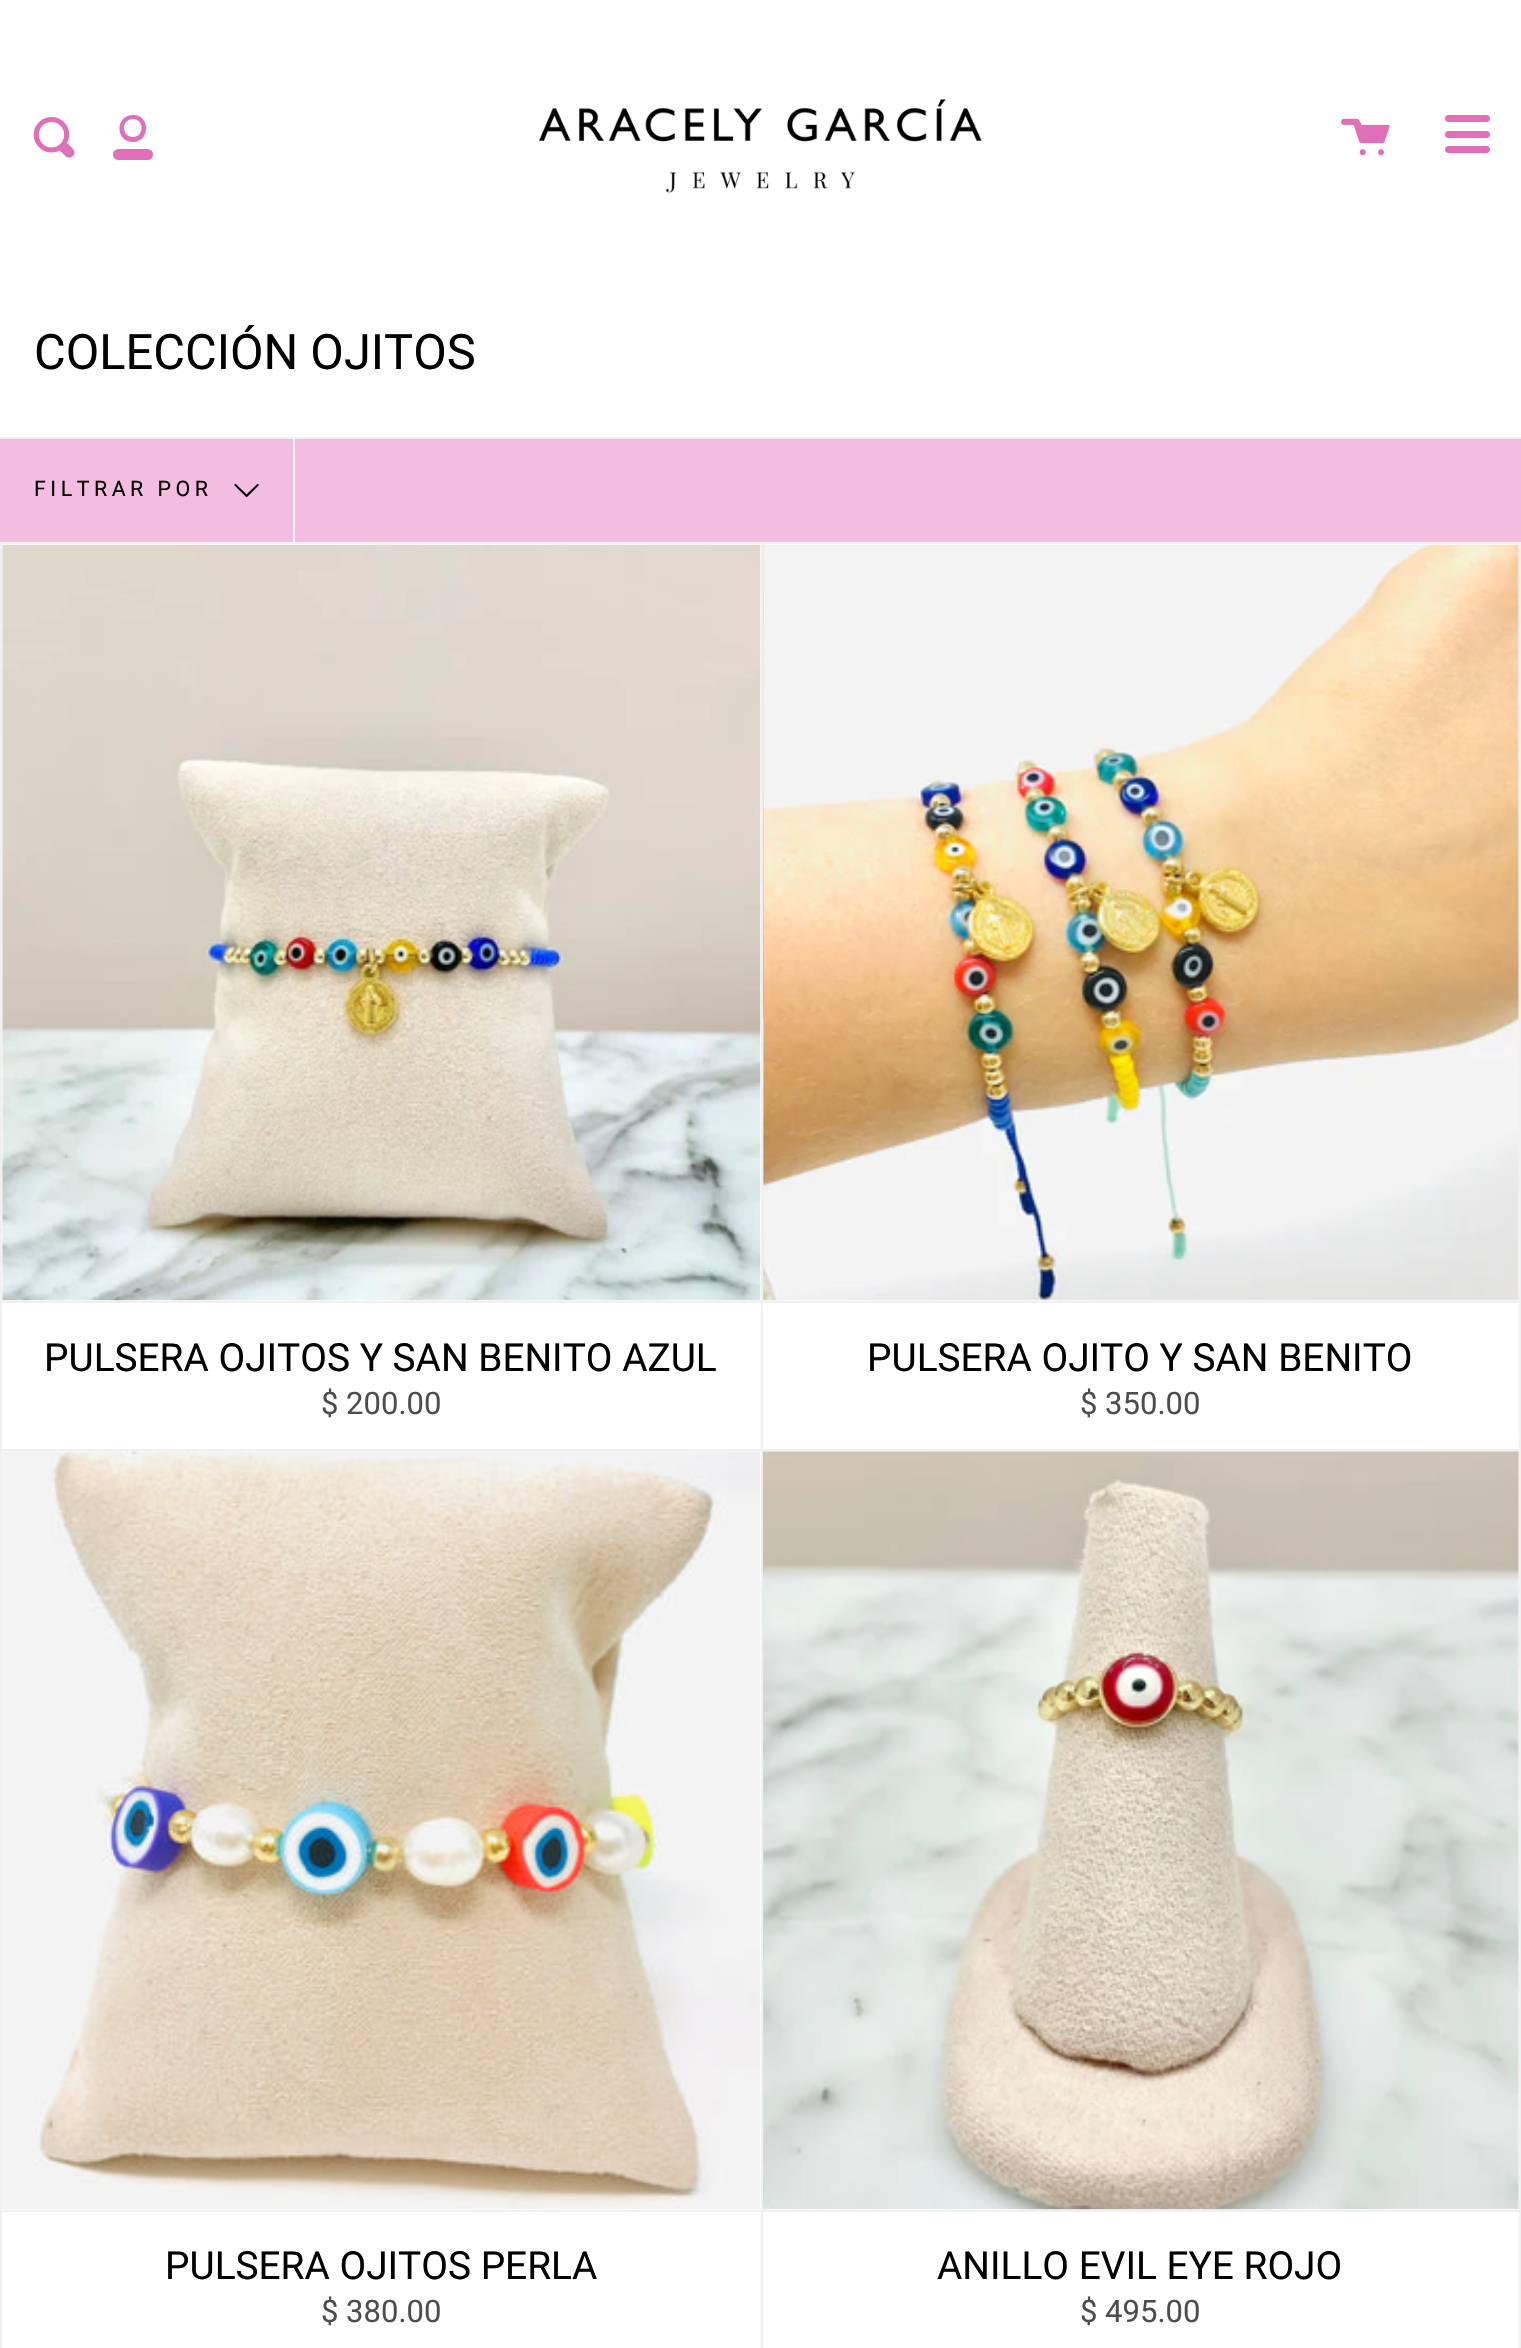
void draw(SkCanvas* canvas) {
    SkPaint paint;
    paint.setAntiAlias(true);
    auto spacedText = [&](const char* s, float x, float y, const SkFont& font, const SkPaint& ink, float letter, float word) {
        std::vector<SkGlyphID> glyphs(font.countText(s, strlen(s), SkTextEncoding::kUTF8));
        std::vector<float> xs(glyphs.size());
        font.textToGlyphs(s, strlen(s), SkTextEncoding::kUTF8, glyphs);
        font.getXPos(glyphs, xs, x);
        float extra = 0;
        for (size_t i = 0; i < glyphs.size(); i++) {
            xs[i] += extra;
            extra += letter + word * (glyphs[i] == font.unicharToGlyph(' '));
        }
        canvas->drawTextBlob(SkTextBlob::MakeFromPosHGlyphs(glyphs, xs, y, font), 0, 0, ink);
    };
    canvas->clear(0xFFFFFFFF);
    canvas->drawImageRect(SkImages::DeferredFromEncodedData(SkData::MakeFromFileName("img1.png")), SkRect::MakeXYWH(538, 99, 444, 94), SkSamplingOptions());
    canvas->drawImageRect(SkImages::DeferredFromEncodedData(SkData::MakeFromFileName("img2.png")), SkRect::MakeXYWH(33, 117, 42, 41), SkSamplingOptions());
    paint.setColor(0xFFE06EB9);
    canvas->drawPath(SkPathBuilder().moveTo(133, 142).cubicTo(115, 142, 115, 115, 133, 115).cubicTo(150.5f, 114.5f, 150.5f, 142, 133, 142).close().moveTo(133, 137).cubicTo(144.5f, 137, 144.5f, 119, 133, 119).cubicTo(121, 119, 121, 137, 133, 137).close().detach(), paint);
    canvas->drawRoundRect(SkRect::MakeXYWH(113, 149, 40, 11), 5.5f, 5.5f, paint);
    canvas->drawImageRect(SkImages::DeferredFromEncodedData(SkData::MakeFromFileName("img3.png")), SkRect::MakeXYWH(1341, 118, 49, 38), SkSamplingOptions());
    canvas->drawPath(SkPathBuilder().moveTo(1448.5f, 115).lineTo(1483, 115).lineTo(1483, 122).lineTo(1448.5f, 122).cubicTo(1446.5f, 122, 1445, 120.5f, 1445, 118.5f).cubicTo(1445, 116.5f, 1446.5f, 115, 1448.5f, 115).close().detach(), paint);
    canvas->drawPath(SkPathBuilder().moveTo(1451, 115).lineTo(1486.5f, 115).cubicTo(1488.5f, 115, 1490, 116.5f, 1490, 118.5f).cubicTo(1490, 120.5f, 1488.5f, 122, 1486.5f, 122).lineTo(1451, 122).close().detach(), paint);
    canvas->drawPath(SkPathBuilder().moveTo(1448.5f, 131).lineTo(1483, 131).lineTo(1483, 138).lineTo(1448.5f, 138).cubicTo(1446.5f, 138, 1445, 136.5f, 1445, 134.5f).cubicTo(1445, 132.5f, 1446.5f, 131, 1448.5f, 131).close().detach(), paint);
    canvas->drawPath(SkPathBuilder().moveTo(1451, 131).lineTo(1486.5f, 131).cubicTo(1488.5f, 131, 1490, 132.5f, 1490, 134.5f).cubicTo(1490, 136.5f, 1488.5f, 138, 1486.5f, 138).lineTo(1451, 138).close().detach(), paint);
    canvas->drawPath(SkPathBuilder().moveTo(1448.5f, 146).lineTo(1483, 146).lineTo(1483, 153).lineTo(1448.5f, 153).cubicTo(1446.5f, 153, 1445, 151.5f, 1445, 149.5f).cubicTo(1445, 147.5f, 1446.5f, 146, 1448.5f, 146).close().detach(), paint);
    canvas->drawPath(SkPathBuilder().moveTo(1451, 146).lineTo(1486.5f, 146).cubicTo(1488.5f, 146, 1490, 147.5f, 1490, 149.5f).cubicTo(1490, 151.5f, 1488.5f, 153, 1486.5f, 153).lineTo(1451, 153).close().detach(), paint);
    SkFont font1(fontMgr->matchFamilyStyle("Roboto", SkFontStyle::Normal()), 48.75f);
    font1.setSubpixel(true);
    paint.setColor(0xFF000000);
    canvas->drawString("COLECCIÓN OJITOS", 34, 369, font1, paint);
    paint.setColor(0xFFF3BDE1);
    canvas->drawRect(SkRect::MakeXYWH(0, 439, 1521, 103), paint);
    paint.setColor(0xFFF0F0F0);
    canvas->drawRect(SkRect::MakeXYWH(0, 437, 1521, 2), paint);
    canvas->drawRect(SkRect::MakeXYWH(293, 439, 2, 103), paint);
    SkFont font2(fontMgr->matchFamilyStyle("Roboto", SkFontStyle::Normal()), 21.4f);
    font2.setSubpixel(true);
    paint.setColor(0xFF000000);
    spacedText("FILTRAR POR", 34, 496, font2, paint, 4.5f, 0);
    canvas->drawImageRect(SkImages::DeferredFromEncodedData(SkData::MakeFromFileName("img4.png")), SkRect::MakeXYWH(234, 484, 25, 13), SkSamplingOptions());
    paint.setColor(0xFFF0F0F0);
    canvas->drawRect(SkRect::MakeXYWH(0, 542, 2, 1806), paint);
    canvas->drawRect(SkRect::MakeXYWH(2, 542, 1519, 2), paint);
    canvas->drawRect(SkRect::MakeXYWH(761, 542, 2, 909), paint);
    canvas->drawRect(SkRect::MakeXYWH(2, 1301, 759, 2), paint);
    canvas->drawImageRect(SkImages::DeferredFromEncodedData(SkData::MakeFromFileName("img5.png")), SkRect::MakeXYWH(2, 544, 759, 757), SkSamplingOptions());
    SkFont font3(fontMgr->matchFamilyStyle("Roboto", SkFontStyle::Normal()), 38.8f);
    font3.setSubpixel(true);
    paint.setColor(0xFF000000);
    canvas->drawString("PULSERA OJITOS Y SAN BENITO AZUL", 44, 1371, font3, paint);
    SkFont font4(fontMgr->matchFamilyStyle("Roboto", SkFontStyle::Normal()), 31);
    font4.setSubpixel(true);
    paint.setColor(0xFF4D4D4D);
    canvas->drawString("$ 200.00", 321, 1414, font4, paint);
    paint.setColor(0xFFF0F0F0);
    canvas->drawRect(SkRect::MakeXYWH(1519, 542, 2, 909), paint);
    canvas->drawRect(SkRect::MakeXYWH(763, 1301, 756, 2), paint);
    canvas->drawImageRect(SkImages::DeferredFromEncodedData(SkData::MakeFromFileName("img6.png")), SkRect::MakeXYWH(762, 544, 757, 757), SkSamplingOptions());
    paint.setColor(0xFF000000);
    canvas->drawString("PULSERA OJITO Y SAN BENITO", 867, 1371, font3, paint);
    paint.setColor(0xFF4D4D4D);
    canvas->drawString("$ 350.00", 1080, 1414, font4, paint);
    paint.setColor(0xFFF0F0F0);
    canvas->drawRect(SkRect::MakeXYWH(2, 1449, 1519, 2), paint);
    canvas->drawRect(SkRect::MakeXYWH(761, 1449, 2, 899), paint);
    canvas->drawRect(SkRect::MakeXYWH(2, 2210, 759, 2), paint);
    canvas->drawImageRect(SkImages::DeferredFromEncodedData(SkData::MakeFromFileName("img7.png")), SkRect::MakeXYWH(2, 1451, 759, 759), SkSamplingOptions());
    paint.setColor(0xFF000000);
    canvas->drawString("PULSERA OJITOS PERLA", 165, 2279, font3, paint);
    paint.setColor(0xFF4D4D4D);
    canvas->drawString("$ 380.00", 321, 2322, font4, paint);
    paint.setColor(0xFFF0F0F0);
    canvas->drawRect(SkRect::MakeXYWH(1519, 1449, 2, 899), paint);
    canvas->drawRect(SkRect::MakeXYWH(763, 2210, 756, 2), paint);
    canvas->drawImageRect(SkImages::DeferredFromEncodedData(SkData::MakeFromFileName("img8.png")), SkRect::MakeXYWH(762, 1451, 757, 759), SkSamplingOptions());
    paint.setColor(0xFF000000);
    canvas->drawString("ANILLO EVIL EYE ROJO", 937, 2279, font3, paint);
    paint.setColor(0xFF4D4D4D);
    canvas->drawString("$ 495.00", 1080, 2322, font4, paint);
}
